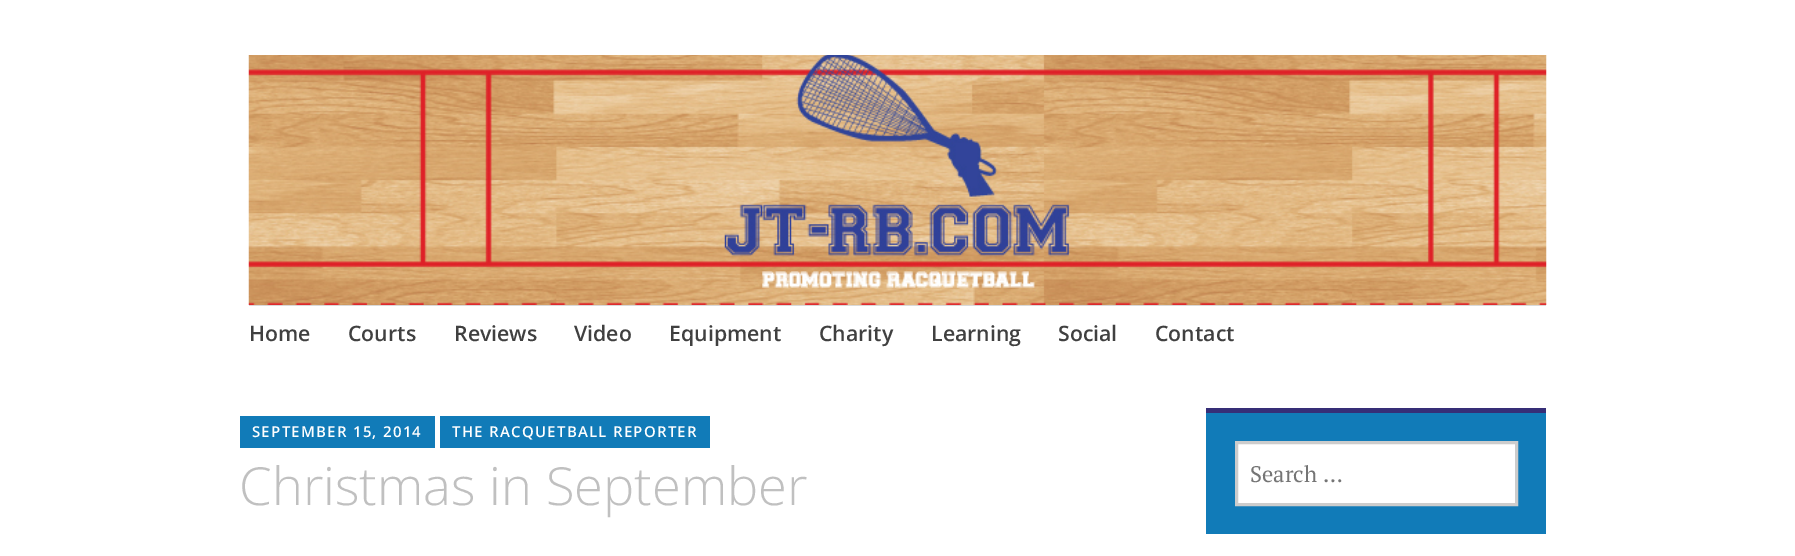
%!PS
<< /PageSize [1795 556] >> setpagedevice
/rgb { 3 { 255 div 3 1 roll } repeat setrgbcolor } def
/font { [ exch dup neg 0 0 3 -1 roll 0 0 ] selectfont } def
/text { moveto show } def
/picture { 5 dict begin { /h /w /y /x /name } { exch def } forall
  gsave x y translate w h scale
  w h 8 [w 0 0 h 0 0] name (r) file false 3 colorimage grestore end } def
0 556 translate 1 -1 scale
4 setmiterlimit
255 255 255 rgb
0 0 1795 556 rectfill
(img_01.rgb) 248 55 1299 250 picture
217 217 217 rgb
249 305 1297 1 rectfill
17 123 184 rgb
240 416 195 32 rectfill
440 416 270 32 rectfill
1206 413 340 121 rectfill
54 46 119 rgb
1206 408 340 5 rectfill
255 255 255 rgb
1236.5 442.5 moveto 280 0 rlineto 0 62 rlineto -280 0 rlineto closepath gsave fill grestore
204 204 204 rgb
3 setlinewidth
stroke
/OpenSans-SemiBold 21.25 font
64 64 64 rgb
(Home) 249 341 text
(Courts) 348 341 text
(Reviews) 454 341 text
(Video) 574 341 text
(Equipment) 669 341 text
(Charity) 819 341 text
(Learning) 931 341 text
(Social) 1058 341 text
(Contact) 1155 341 text
/OpenSans-SemiBold 15 font
255 255 255 rgb
252 437 moveto 1.25 0 (SEPTEMBER 15, 2014) ashow
452 437 moveto 1.25 0 (THE RACQUETBALL REPORTER) ashow
/OpenSans-Light 52.5 font
192 192 192 rgb
(Christmas in September) 239 505 text
/PTSerif-Regular 22.5 font
117 117 117 rgb
(Search …) 1250 482 text
showpage
